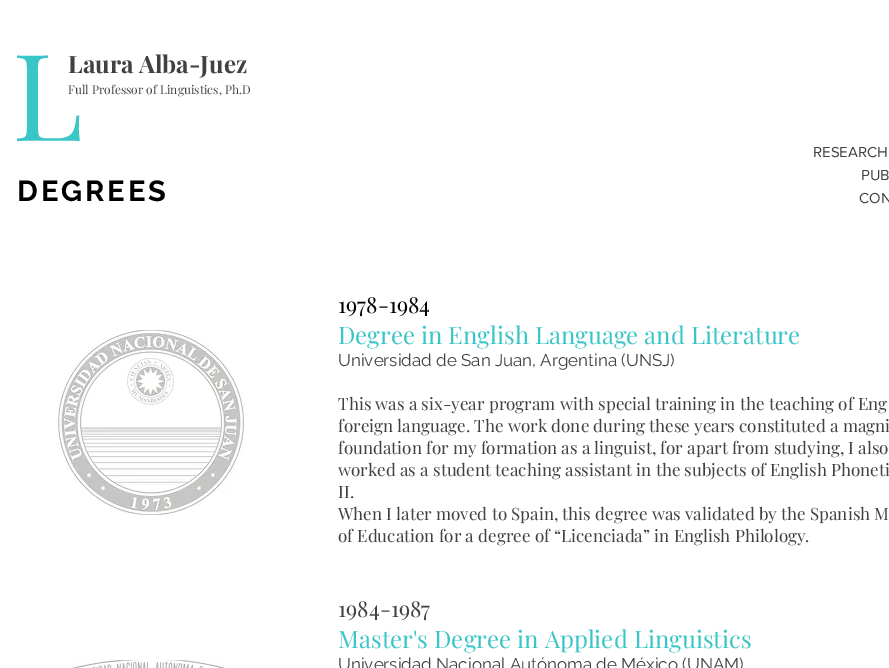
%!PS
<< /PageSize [889 668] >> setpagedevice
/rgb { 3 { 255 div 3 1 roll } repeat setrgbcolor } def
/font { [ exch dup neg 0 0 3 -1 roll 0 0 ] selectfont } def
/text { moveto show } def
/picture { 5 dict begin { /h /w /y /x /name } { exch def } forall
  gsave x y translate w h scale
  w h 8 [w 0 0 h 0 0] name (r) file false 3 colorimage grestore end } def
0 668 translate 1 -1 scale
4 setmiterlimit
255 255 255 rgb
0 0 889 668 rectfill
(img_01.rgb) 58 330 186 185 picture
(img_02.rgb) 72 660 153 8 picture
/PlayfairDisplay-Regular 121 font
58 197 199 rgb
(L) 12 141 text
/PlayfairDisplay-Bold 24 font
65 65 65 rgb
(Laura Alba-Juez) 68 73 text
/PlayfairDisplay-Regular 12 font
(Full Professor of Linguistics, Ph.D) 68 94 text
/Raleway-Bold 29 font
0 0 0 rgb
17 201 moveto 3 0 (DEGREES) ashow
/PlayfairDisplay-Regular 22 font
(1978-1984) 338 313 text
/PlayfairDisplay-Regular 24 font
58 197 199 rgb
(Degree in English Language and Literature) 338 344 text
/Raleway-Regular 17 font
65 65 65 rgb
(Universidad de San Juan, Argentina \(UNSJ\)) 338 366 text
/PlayfairDisplay-Regular 17 font
(This was a six-year program with special training in the teaching of Eng) 338 410 text
(foreign language. The work done during these years constituted a magni) 338 432 text
(foundation for my formation as a linguist, for apart from studying, I also) 338 454 text
(worked as a student teaching assistant in the subjects of English Phoneti) 338 476 text
(II.) 338 498 text
(When I later moved to Spain, this degree was validated by the Spanish M) 338 520 text
(of Education for a degree of “Licenciada” in English Philology.) 338 542 text
/PlayfairDisplay-Regular 22 font
(1984-1987) 338 617 text
/PlayfairDisplay-Regular 24 font
58 197 199 rgb
(Master's Degree in Applied Linguistics) 338 648 text
/Raleway-Regular 17 font
65 65 65 rgb
(Universidad Nacional Autónoma de México \(UNAM\)) 338 670 text
/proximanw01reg-Regular 15 font
(RESEARCH) 813 157 text
(PUB) 861 180 text
(CON) 859 203 text
showpage
